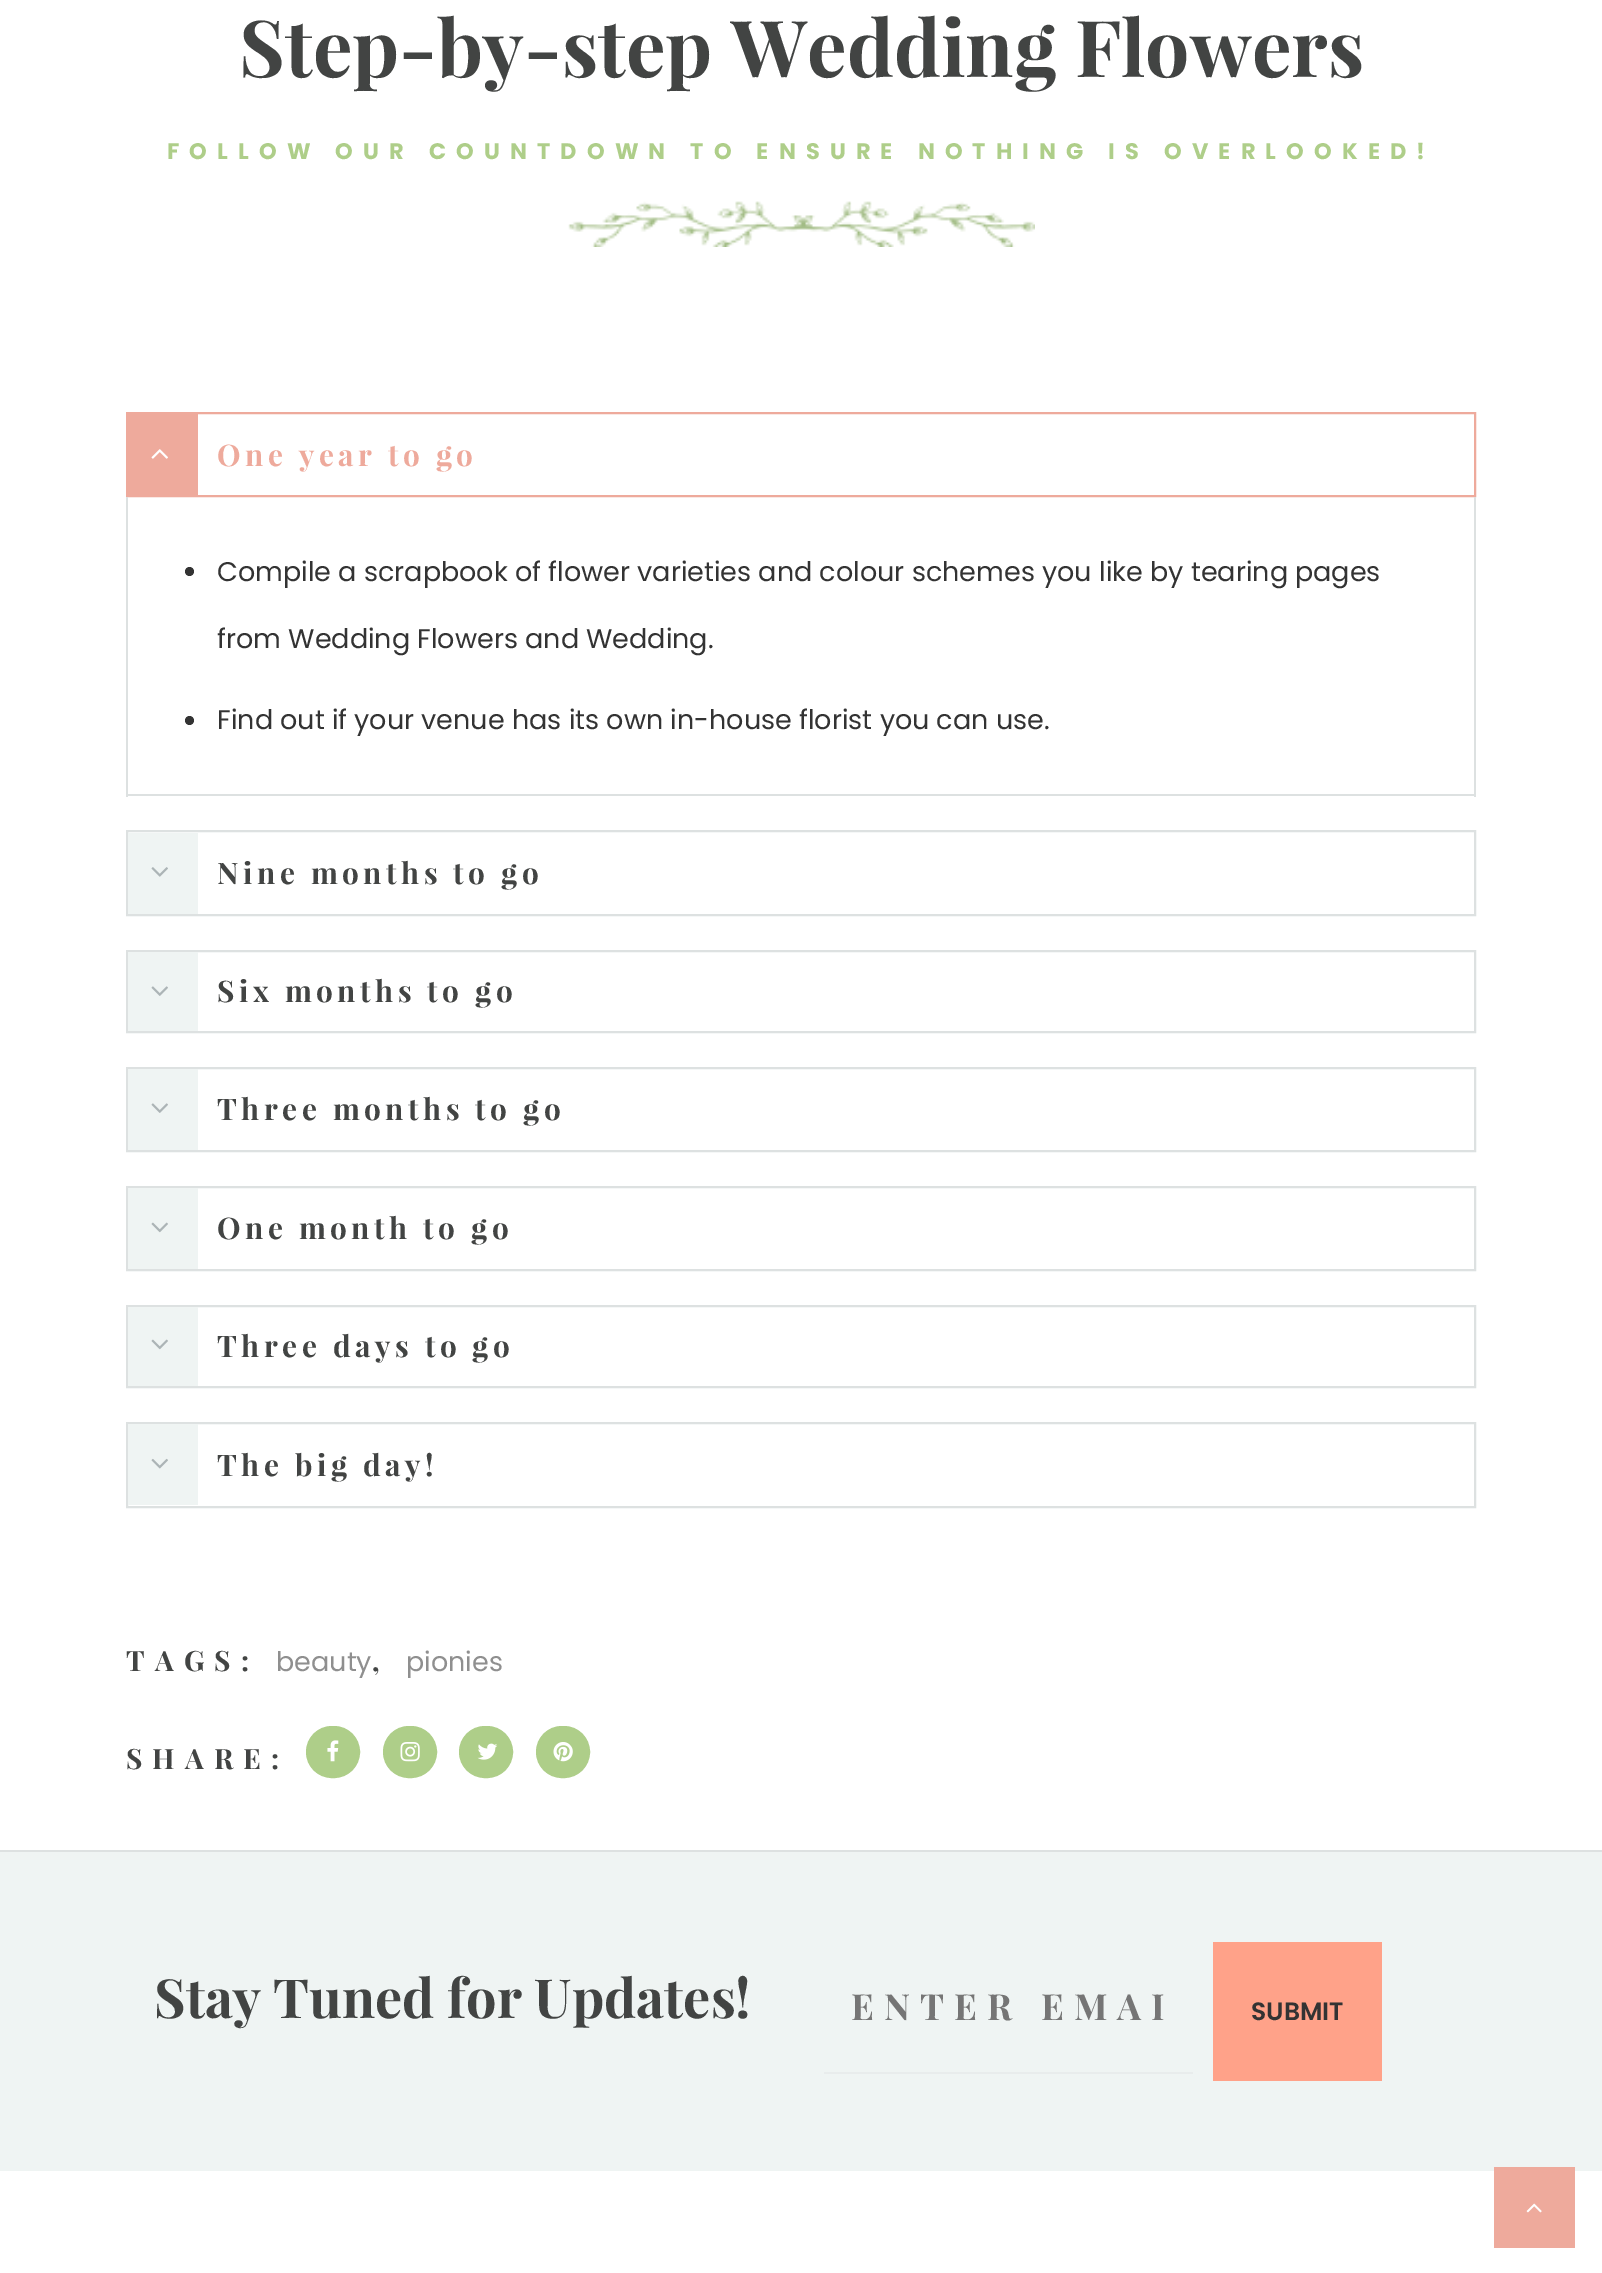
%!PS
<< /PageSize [1602 2273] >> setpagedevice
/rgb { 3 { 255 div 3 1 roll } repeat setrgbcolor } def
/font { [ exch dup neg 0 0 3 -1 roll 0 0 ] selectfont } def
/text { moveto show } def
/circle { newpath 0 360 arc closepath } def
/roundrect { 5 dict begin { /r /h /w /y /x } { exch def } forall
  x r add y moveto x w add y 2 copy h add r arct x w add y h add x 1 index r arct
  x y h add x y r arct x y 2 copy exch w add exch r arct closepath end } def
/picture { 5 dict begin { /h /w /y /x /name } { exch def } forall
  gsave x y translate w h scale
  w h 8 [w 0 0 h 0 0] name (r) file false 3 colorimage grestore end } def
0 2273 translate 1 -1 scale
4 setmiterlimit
255 255 255 rgb
0 0 1602 2273 rectfill
(img_01.rgb) 568 201 467 46 picture
238 170 156 rgb
2 setlinewidth
127 413 1348 83 rectstroke
128 414 70 81 rectfill
(img_02.rgb) 151 449 17 10 picture
221 225 225 rgb
1474 497 2 300 rectfill
126 794 1350 2 rectfill
126 497 2 300 rectfill
51 51 51 rgb
189.5 571.5 4.5 circle fill
189.5 720.5 4.5 circle fill
221 225 225 rgb
127 831 1348 84 rectstroke
239 244 243 rgb
128 833 70 81 rectfill
(img_03.rgb) 151 867 17 10 picture
221 225 225 rgb
127 951 1348 81 rectstroke
239 244 243 rgb
128 952 70 79 rectfill
(img_04.rgb) 151 986 17 10 picture
221 225 225 rgb
127 1068 1348 83 rectstroke
239 244 243 rgb
128 1069 70 81 rectfill
(img_04.rgb) 151 1103 17 10 picture
221 225 225 rgb
127 1187 1348 83 rectstroke
239 244 243 rgb
128 1188 70 81 rectfill
(img_05.rgb) 151 1222 17 11 picture
221 225 225 rgb
127 1306 1348 81 rectstroke
239 244 243 rgb
128 1307 70 79 rectfill
(img_05.rgb) 151 1339 17 11 picture
221 225 225 rgb
127 1423 1348 84 rectstroke
239 244 243 rgb
128 1424 70 81 rectfill
(img_06.rgb) 151 1458 17 11 picture
174 206 137 rgb
308.5 1728.5 49 47 23.5 roundrect gsave fill grestore
5 setlinewidth
stroke
(img_07.rgb) 327 1740 12 22 picture
385.5 1728.5 49 47 23.5 roundrect gsave fill grestore
stroke
(img_08.rgb) 400 1742 20 20 picture
461.5 1728.5 49 47 23.5 roundrect gsave fill grestore
stroke
(img_09.rgb) 477 1743 21 17 picture
538.5 1728.5 49 47 23.5 roundrect gsave fill grestore
stroke
(img_10.rgb) 553 1742 20 20 picture
221 225 225 rgb
0 1850 1602 2 rectfill
239 244 243 rgb
0 1852 1602 319 rectfill
232 236 236 rgb
824 2072 369 2 rectfill
255 162 137 rgb
1213 1942 169 139 rectfill
238 170 156 rgb
1494 2167 81 81 rectfill
(img_11.rgb) 1526 2203 16 10 picture
/PlayfairDisplay-Bold 78.6 font
66 68 67 rgb
(Step-by-step Wedding Flowers) 239 77 text
/Poppins-Bold 22.5 font
174 206 137 rgb
167 159 moveto 10.12 0 (FOLLOW OUR COUNTDOWN TO ENSURE NOTHING IS OVERLOOKED!) ashow
/PlayfairDisplay-Bold 29.75 font
238 170 156 rgb
217 466 moveto 4.5 0 (One year to go) ashow
/Poppins-Regular 27 font
51 51 51 rgb
(Compile a scrapbook of flower varieties and colour schemes you like by tearing pages) 217 581 text
(from Wedding Flowers and Wedding.) 217 648 text
(Find out if your venue has its own in-house florist you can use.) 217 729 text
/PlayfairDisplay-Bold 29.75 font
66 68 67 rgb
217 884 moveto 4.5 0 (Nine months to go) ashow
217 1002 moveto 4.5 0 (Six months to go) ashow
217 1120 moveto 4.5 0 (Three months to go) ashow
217 1239 moveto 4.5 0 (One month to go) ashow
217 1357 moveto 4.5 0 (Three days to go) ashow
217 1476 moveto 4.5 0 (The big day!) ashow
/PlayfairDisplay-Bold 28 font
126 1671 moveto 10.12 0 (TAGS:) ashow
/Poppins-Regular 27 font
143 143 143 rgb
(beauty) 276 1671 text
/PlayfairDisplay-Bold 28 font
66 68 67 rgb
372 1671 moveto 10.12 0 (,) ashow
/Poppins-Regular 27 font
143 143 143 rgb
(pionies) 406 1671 text
/PlayfairDisplay-Bold 28 font
66 68 67 rgb
126 1769 moveto 10.12 0 (SHARE:) ashow
/PlayfairDisplay-Bold 54 font
(Stay Tuned for Updates!) 154 2018 text
/PlayfairDisplay-Bold 36 font
117 117 117 rgb
851 2020 moveto 10.12 0 (ENTER EMAI) ashow
/Poppins-SemiBold 25 font
51 51 51 rgb
(SUBMIT) 1251 2020 text
showpage
